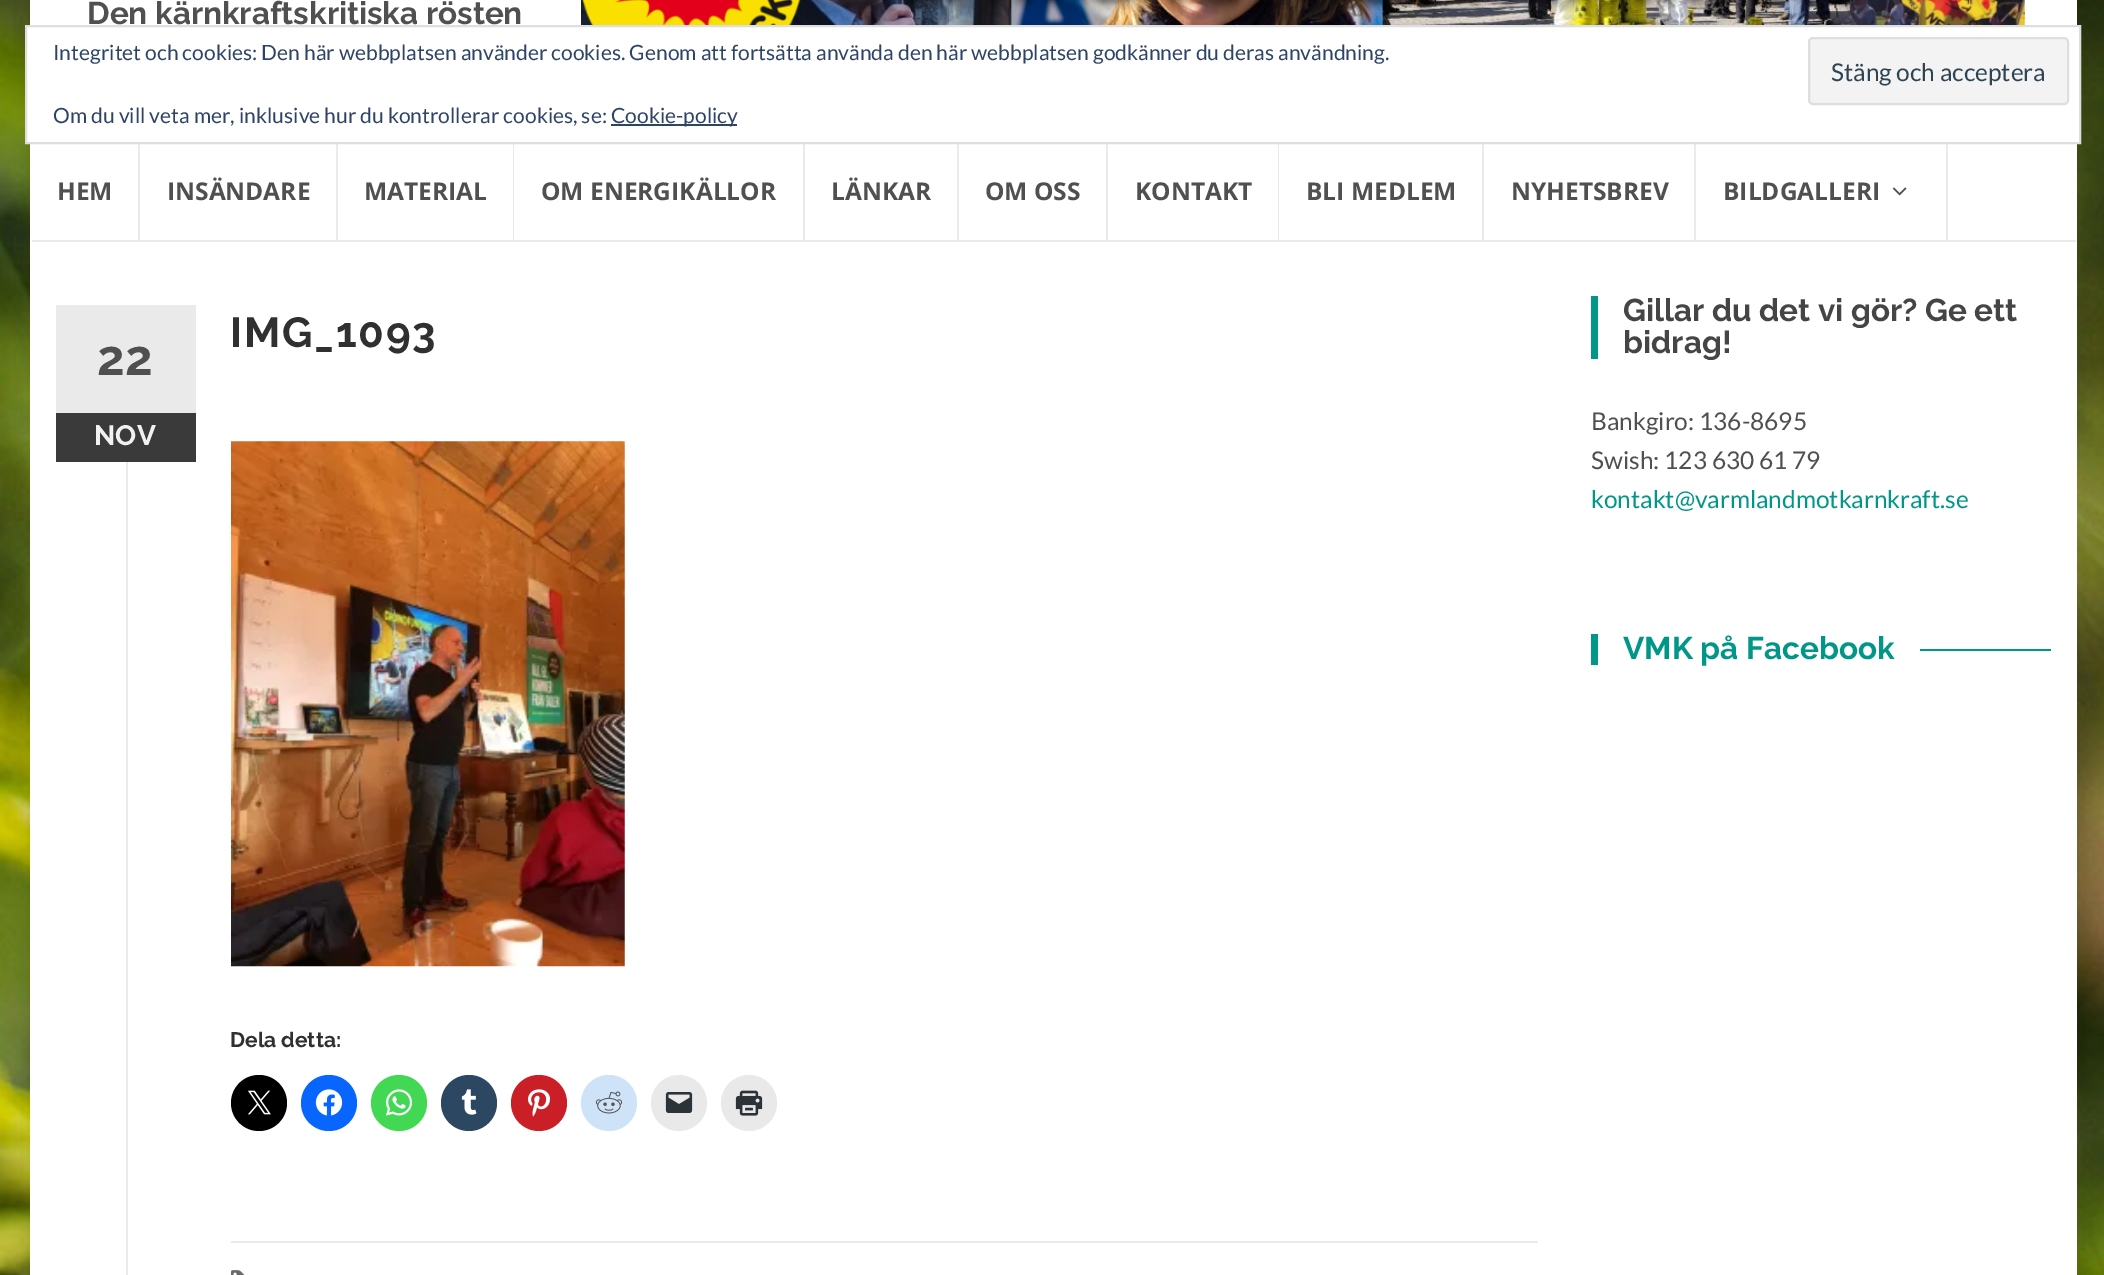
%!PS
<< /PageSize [2104 1275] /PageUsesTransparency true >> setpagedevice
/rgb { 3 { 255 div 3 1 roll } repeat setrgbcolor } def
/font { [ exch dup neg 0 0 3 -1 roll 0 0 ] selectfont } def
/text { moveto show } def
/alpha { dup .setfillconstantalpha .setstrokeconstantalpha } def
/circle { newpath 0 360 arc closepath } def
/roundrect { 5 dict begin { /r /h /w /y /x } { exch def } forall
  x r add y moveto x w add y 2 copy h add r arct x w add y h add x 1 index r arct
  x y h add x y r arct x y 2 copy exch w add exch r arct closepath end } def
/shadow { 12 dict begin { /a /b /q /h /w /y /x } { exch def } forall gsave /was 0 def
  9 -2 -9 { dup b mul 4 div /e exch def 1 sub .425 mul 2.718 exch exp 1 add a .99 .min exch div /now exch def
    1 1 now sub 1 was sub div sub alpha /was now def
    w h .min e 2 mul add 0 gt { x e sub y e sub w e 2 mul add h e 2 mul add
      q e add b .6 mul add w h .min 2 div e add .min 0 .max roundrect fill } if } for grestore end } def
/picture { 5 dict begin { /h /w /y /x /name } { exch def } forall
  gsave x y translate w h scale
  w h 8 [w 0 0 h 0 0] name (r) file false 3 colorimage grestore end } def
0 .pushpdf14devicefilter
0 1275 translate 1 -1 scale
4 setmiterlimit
255 255 255 rgb
0 0 2104 1275 rectfill
(img_01.rgb) 0 0 2104 1275 picture
0 0 0 rgb
30 -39 2047 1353 0 13 0.1 shadow
255 255 255 rgb
30 0 2047 1275 rectfill
(img_02.rgb) 581 0 1444 25 picture
234 234 234 rgb
32 240 2044 2 rectfill
140 140 moveto 0 100 rlineto -2 0 rlineto 0 -96 rlineto closepath fill
338 140 moveto 0 100 rlineto -2 0 rlineto 0 -96 rlineto closepath fill
514 140 moveto 0 100 rlineto -1 0 rlineto 0 -96 rlineto closepath fill
805 140 moveto 0 100 rlineto -2 0 rlineto 0 -96 rlineto closepath fill
959 140 moveto 0 100 rlineto -2 0 rlineto 0 -96 rlineto closepath fill
1108 140 moveto 0 100 rlineto -2 0 rlineto 0 -96 rlineto closepath fill
1279 140 moveto 0 100 rlineto -1 0 rlineto 0 -96 rlineto closepath fill
1484 140 moveto 0 100 rlineto -2 0 rlineto 0 -96 rlineto closepath fill
1696 140 moveto 0 100 rlineto -2 0 rlineto 0 -96 rlineto closepath fill
1948 140 moveto 0 100 rlineto -2 0 rlineto 0 -96 rlineto closepath fill
(img_03.rgb) 1892 187 15 9 picture
56 305 140 108 rectfill
58 58 58 rgb
56 413 140 49 rectfill
234 234 234 rgb
126 462 2 813 rectfill
(img_04.rgb) 231 441 394 526 picture
0 0 0 rgb
259 1103 28 circle fill
(img_05.rgb) 248 1090 23 25 picture
8 102 255 rgb
329 1103 28 circle fill
(img_06.rgb) 315 1089 28 27 picture
67 216 84 rgb
399 1103 28 circle fill
(img_07.rgb) 386 1089 27 27 picture
44 71 98 rgb
469 1103 28 circle fill
(img_08.rgb) 461 1089 16 26 picture
202 31 39 rgb
539 1103 28 circle fill
(img_09.rgb) 528 1089 22 28 picture
206 227 248 rgb
609 1103 28 circle fill
(img_10.rgb) 595 1091 28 23 picture
233 233 233 rgb
679 1103 28 circle fill
(img_11.rgb) 665 1092 28 21 picture
749 1103 28 circle fill
(img_12.rgb) 735 1090 28 26 picture
234 234 234 rgb
231 1241 1307 2 rectfill
(img_13.rgb) 231 1270 14 5 picture
0 150 136 rgb
1591 296 7 63 rectfill
1591 634 7 31 rectfill
1920 649 131 2 rectfill
255 255 255 rgb
26 26 moveto 2054 0 rlineto 0 117 rlineto -2054 0 rlineto closepath gsave fill grestore
222 222 222 rgb
2 setlinewidth
stroke
243 243 243 rgb
1809 38 259 66 4 roundrect gsave fill grestore
222 222 222 rgb
stroke
46 68 103 rgb
611 124 126 2 rectfill
/Raleway-Bold 31.5 font
80 80 80 rgb
(Den kärnkraftskritiska rösten) 87 24 text
/OpenSans-Bold 24.5 font
(HEM) 57 200 text
(INSÄNDARE) 167 200 text
(MATERIAL) 364 200 text
(OM ENERGIKÄLLOR) 541 200 text
(LÄNKAR) 831 200 text
(OM OSS) 985 200 text
(KONTAKT) 1135 200 text
(BLI MEDLEM) 1306 200 text
(NYHETSBREV) 1511 200 text
(BILDGALLERI) 1723 200 text
/Raleway-Bold 42 font
48 48 48 rgb
230 347 moveto 1.75 0 (IMG_1093) ashow
/Raleway-Bold 49 font
80 80 80 rgb
(22) 97 375 text
/Raleway-Bold 28 font
241 241 241 rgb
(NOV) 94 445 text
/Raleway-Bold 21 font
48 48 48 rgb
(Dela detta:) 230 1047 text
/Raleway-Bold 31.5 font
69 69 69 rgb
(Gillar du det vi gör? Ge ett) 1623 321 text
(bidrag!) 1623 353 text
/Lato-Regular 24.5 font
80 80 80 rgb
(Bankgiro: 136-8695) 1591 430 text
(Swish: 123 630 61 79) 1591 469 text
0 150 136 rgb
(kontakt@varmlandmotkarnkraft.se) 1591 508 text
/Raleway-Bold 31.5 font
(VMK på Facebook) 1623 659 text
/Lato-Regular 21 font
46 68 103 rgb
(Integritet och cookies: Den här webbplatsen använder cookies. Genom att fortsätta använda den här webbplatsen godkänner du deras användning.) 53 60 text
/Lato-Regular 24.5 font
46 68 83 rgb
(Stäng och acceptera) 1831 81 text
/Lato-Regular 21 font
46 68 103 rgb
(Om du vill veta mer, inklusive hur du kontrollerar cookies, se:) 53 123 text
(Cookie-policy) 611 123 text
.poppdf14devicefilter showpage
